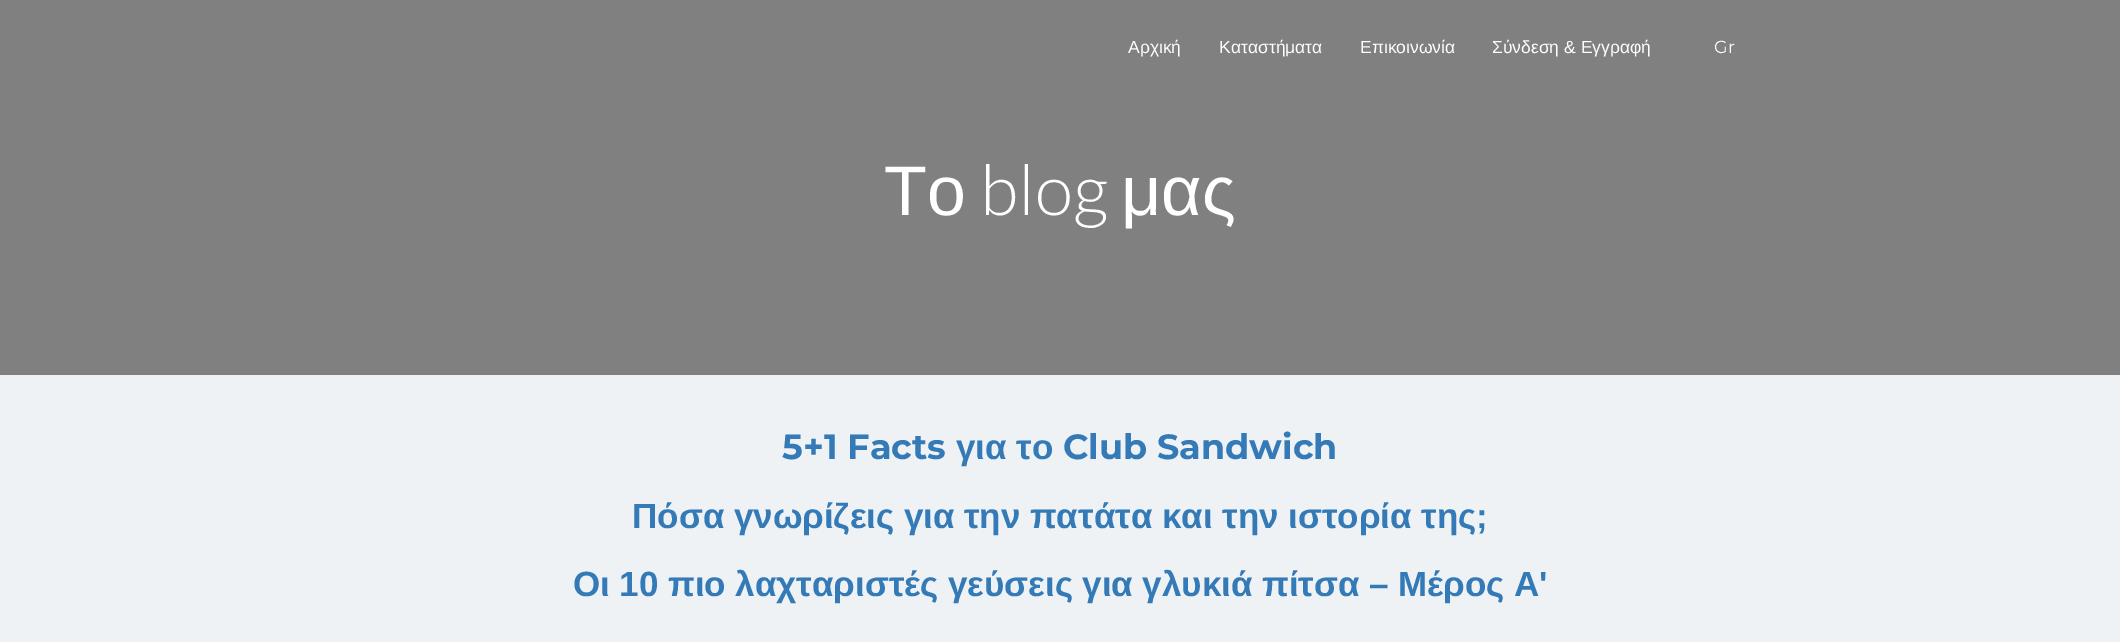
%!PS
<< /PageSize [2120 642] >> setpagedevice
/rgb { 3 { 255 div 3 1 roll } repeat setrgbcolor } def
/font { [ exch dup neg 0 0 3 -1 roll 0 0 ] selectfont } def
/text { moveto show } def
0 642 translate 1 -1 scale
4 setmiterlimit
128 128 128 rgb
0 0 2120 642 rectfill
239 242 245 rgb
0 375 2120 267 rectfill
/LiberationSans-Regular 17.5 font
255 255 255 rgb
(Αρχική) 1128 53 text
(Καταστήματα) 1219 53 text
(Επικοινωνία) 1360 53 text
(Σύνδεση & Eγγραφή) 1492 53 text
/Montserrat-Regular 17.5 font
(Gr) 1714 53 text
/LiberationSans-Regular 70 font
(Το) 884 215 text
/Lato-Light 70 font
(blog) 980 215 text
/LiberationSans-Regular 70 font
(μας) 1121 215 text
/Montserrat-Bold 35 font
51 122 183 rgb
(5+1 Facts) 782 459 text
/LiberationSans-Bold 35 font
(για το) 956 459 text
/Montserrat-Bold 35 font
(Club Sandwich) 1063 459 text
/LiberationSans-Bold 35 font
632 528 moveto -0.25 0 32 (Πόσα γνωρίζεις για την πατάτα και την ιστορία της;) widthshow
573 596 moveto -0.25 0 32 (Οι 10 πιο λαχταριστές γεύσεις για γλυκιά πίτσα – Μέρος Α') widthshow
showpage
